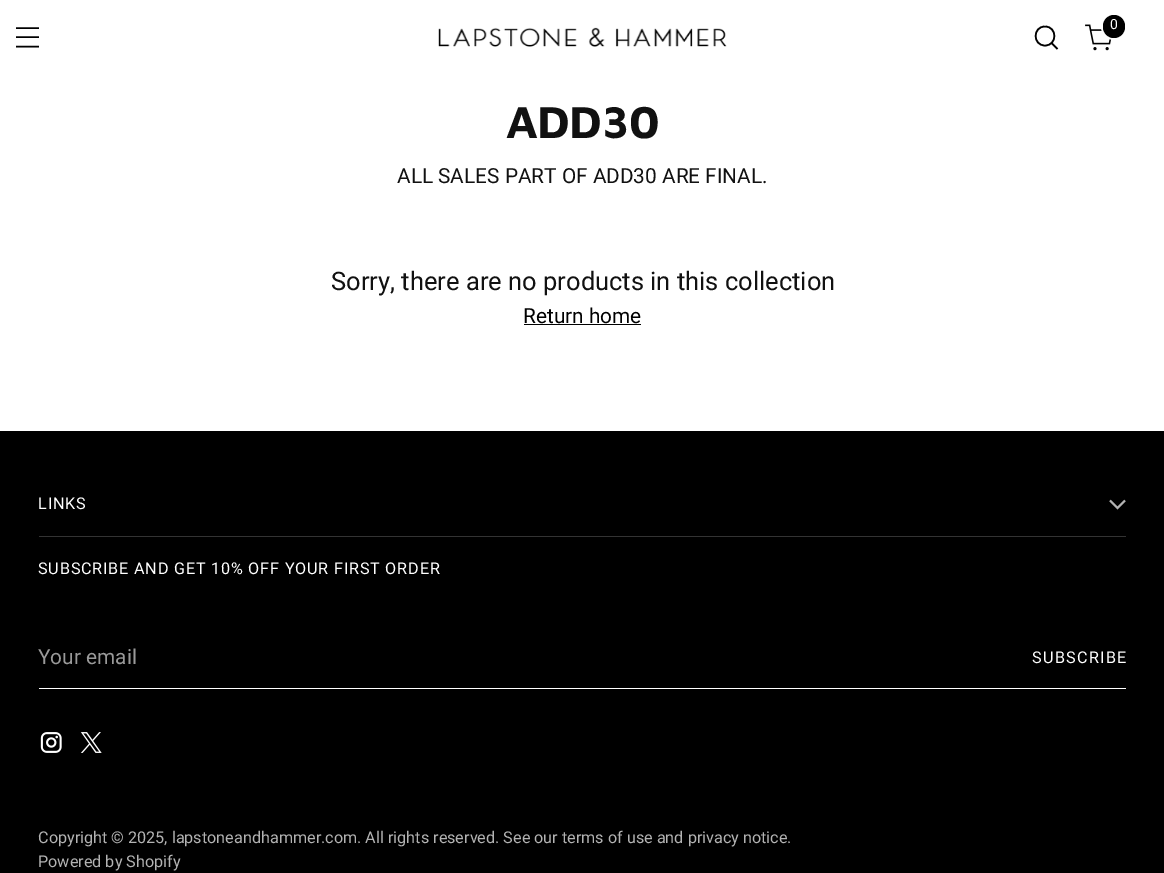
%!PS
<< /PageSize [1164 873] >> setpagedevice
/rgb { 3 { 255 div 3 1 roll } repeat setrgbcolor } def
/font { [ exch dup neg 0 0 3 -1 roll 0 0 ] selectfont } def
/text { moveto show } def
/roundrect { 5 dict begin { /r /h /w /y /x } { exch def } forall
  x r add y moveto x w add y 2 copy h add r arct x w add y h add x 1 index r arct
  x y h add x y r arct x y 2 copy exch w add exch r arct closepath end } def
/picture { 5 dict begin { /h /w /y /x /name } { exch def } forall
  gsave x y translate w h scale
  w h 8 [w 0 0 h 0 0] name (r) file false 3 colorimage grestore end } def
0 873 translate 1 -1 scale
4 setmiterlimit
255 255 255 rgb
0 0 1164 873 rectfill
0 0 0 rgb
1.6 setlinewidth
16 37 moveto 23 0 rlineto 16 28 moveto 23 0 rlineto 16 46.5 moveto 23 0 rlineto stroke
1 setlinecap
1045 45.5 moveto 12.5 0 12.5 -19 0 -19 rcurveto -12.5 0 -12.5 19 0 19 rcurveto closepath stroke
0 setlinecap
1051.5 43 moveto 6 6 rlineto stroke
(img_01.rgb) 1085 24 27 27 picture
255 255 255 rgb
2 setlinewidth
1102 15 25 24 12 roundrect stroke
0 0 0 rgb
1103 15 22 23 11 roundrect fill
(img_02.rgb) 438 27 289 20 picture
524 324 117 1 rectfill
0 431 1164 442 rectfill
51 51 51 rgb
39 536 1087 1 rectfill
179 179 179 rgb
1110 500.5 moveto 7.5 7.5 rlineto 7.5 -7.5 rlineto stroke
255 255 255 rgb
39 688 1087 1 rectfill
(img_03.rgb) 40 732 22 21 picture
(img_04.rgb) 80 732 22 21 picture
/Roboto-Regular 14 font
(0) 1110 29 text
/MavenPro-Bold 46 font
17 17 17 rgb
506 138 moveto -0.5 0 (ADD30) ashow
/Roboto-Regular 20.8 font
(ALL SALES PART OF ADD30 ARE FINAL.) 397 183 text
/Roboto-Regular 25.5 font
(Sorry, there are no products in this collection) 331 290 text
/Roboto-Regular 20.8 font
0 0 0 rgb
(Return home) 523 323 text
/Roboto-Regular 16.2 font
255 255 255 rgb
38 509 moveto 0.8 0 (LINKS) ashow
38 574 moveto 0.8 0 (SUBSCRIBE AND GET 10% OFF YOUR FIRST ORDER) ashow
/Roboto-Regular 20.8 font
153 153 153 rgb
(Your email) 38 664 text
/Roboto-Regular 16.2 font
255 255 255 rgb
1032 663 moveto 1.25 0 (SUBSCRIBE) ashow
179 179 179 rgb
(Copyright © 2025, lapstoneandhammer.com. All rights reserved. See our terms of use and privacy notice.) 38 843 text
(Powered by Shopify) 38 867 text
showpage
